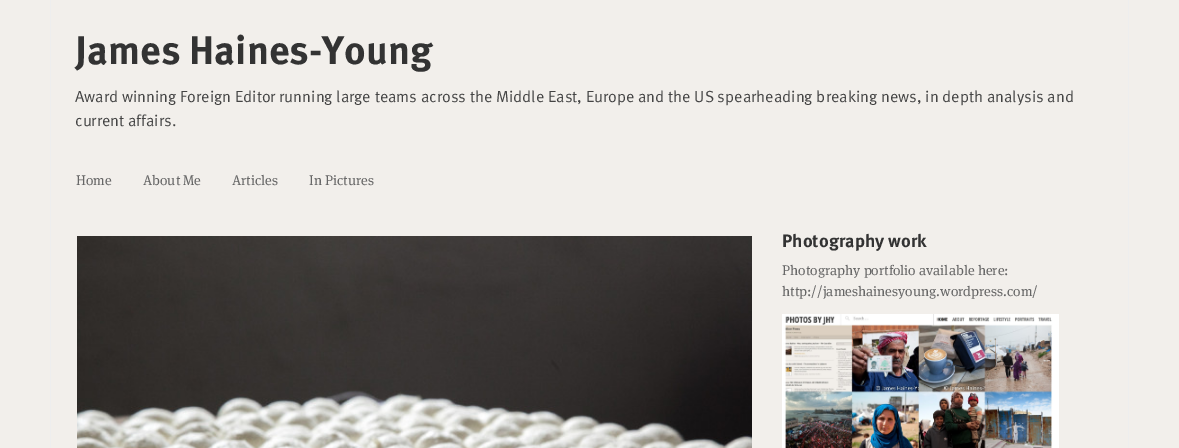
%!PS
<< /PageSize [1179 448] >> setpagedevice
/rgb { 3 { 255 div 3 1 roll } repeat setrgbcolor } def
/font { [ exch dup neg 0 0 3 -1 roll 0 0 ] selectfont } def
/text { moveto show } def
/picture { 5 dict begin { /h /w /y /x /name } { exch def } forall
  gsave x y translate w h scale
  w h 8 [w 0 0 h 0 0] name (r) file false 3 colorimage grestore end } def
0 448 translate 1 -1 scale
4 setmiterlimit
242 239 235 rgb
0 0 1179 448 rectfill
238 238 238 rgb
1128 0 1 448 rectfill
50 0 1 448 rectfill
(img_01.rgb) 77 236 675 212 picture
(img_02.rgb) 782 314 277 134 picture
/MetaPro-Bold 40 font
51 51 51 rgb
(James Haines-Young) 75 64 text
/MetaPro-Regular 16 font
68 68 68 rgb
(Award winning Foreign Editor running large teams across the Middle East, Europe and the US spearheading breaking news, in depth analysis and) 75 102 text
(current affairs.) 75 126 text
/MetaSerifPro-Regular 14 font
102 102 102 rgb
(Home) 76 185 text
(About Me) 143 185 text
(Articles) 232 185 text
(In Pictures) 309 185 text
/MetaPro-Bold 18 font
51 51 51 rgb
(Photography work) 782 247 text
/MetaSerifPro-Regular 14 font
102 102 102 rgb
(Photography portfolio available here:) 782 275 text
(http://jameshainesyoung.wordpress.com/) 782 296 text
showpage
